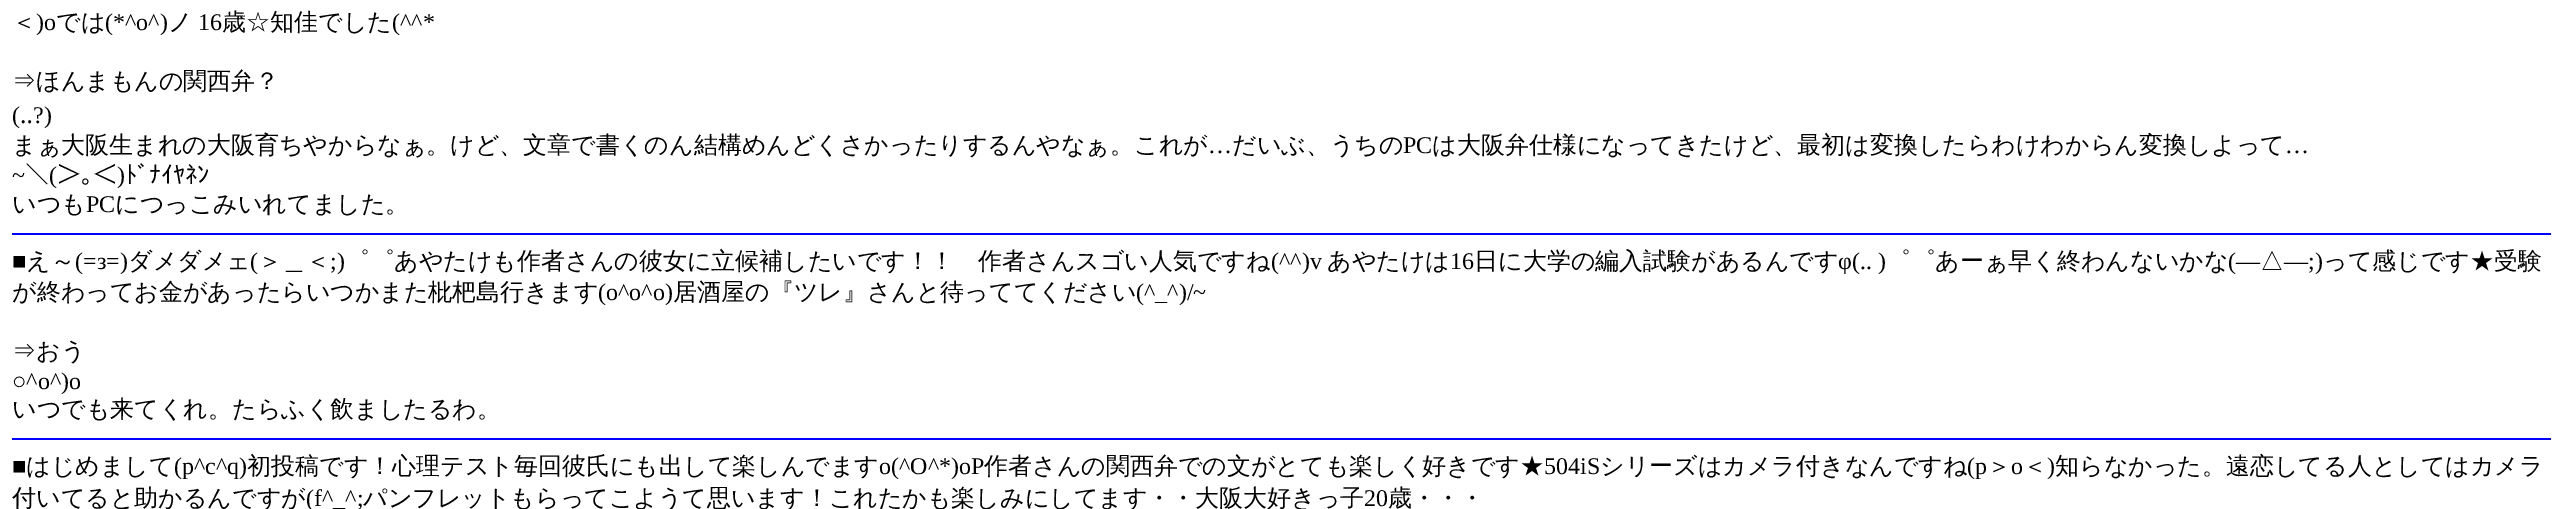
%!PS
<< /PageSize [2562 509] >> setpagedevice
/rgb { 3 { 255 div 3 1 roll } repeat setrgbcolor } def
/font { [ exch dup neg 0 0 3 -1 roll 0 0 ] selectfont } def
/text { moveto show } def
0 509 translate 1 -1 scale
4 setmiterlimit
255 255 255 rgb
0 0 2562 509 rectfill
0 0 255 rgb
12 233 2539 2 rectfill
12 438 2539 2 rectfill
/WenQuanYiZenHei-Medium 24 font
0 0 0 rgb
(＜) 12 30 text
/LiberationSerif-Regular 24 font
(\)o) 36 30 text
/WenQuanYiZenHei-Medium 24 font
(では) 56 30 text
/LiberationSerif-Regular 24 font
(\(*^o^\)) 105 30 text
/WenQuanYiZenHei-Medium 24 font
(ノ) 168 30 text
/LiberationSerif-Regular 24 font
(16) 198 30 text
/WenQuanYiZenHei-Medium 24 font
(歳☆知佳でした) 222 30 text
/LiberationSerif-Regular 24 font
(\(^^*) 392 30 text
/WenQuanYiZenHei-Medium 24 font
(⇒ほんまもんの関西弁？) 12 89 text
/LiberationSerif-Regular 24 font
(\() 12 123 text
/NotoSans-Regular 24 font
(‥) 20 123 text
/LiberationSerif-Regular 24 font
(?\)) 33 123 text
/WenQuanYiZenHei-Medium 24 font
(まぁ大阪生まれの大阪育ちやからなぁ。けど、文章で書くのん結構めんどくさかったりするんやなぁ。これが) 12 153 text
/LiberationSerif-Regular 24 font
(…) 1208 153 text
/WenQuanYiZenHei-Medium 24 font
(だいぶ、うちの) 1232 153 text
/LiberationSerif-Regular 24 font
(PC) 1403 153 text
/WenQuanYiZenHei-Medium 24 font
(は大阪弁仕様になってきたけど、最初は変換したらわけわからん変換しよって) 1432 153 text
/LiberationSerif-Regular 24 font
(…) 2285 153 text
(~) 12 183 text
/IPAGothic-Regular 24 font
(＼) 25 183 text
/LiberationSerif-Regular 24 font
(\() 49 183 text
/IPAGothic-Regular 24 font
(＞｡＜) 57 183 text
/LiberationSerif-Regular 24 font
(\)) 117 183 text
/IPAGothic-Regular 24 font
(ﾄﾞﾅｲﾔﾈﾝ) 125 183 text
/WenQuanYiZenHei-Medium 24 font
(いつも) 12 212 text
/LiberationSerif-Regular 24 font
(PC) 86 212 text
/WenQuanYiZenHei-Medium 24 font
(につっこみいれてました。) 115 212 text
/LiberationSerif-Regular 24 font
(■) 12 269 text
/WenQuanYiZenHei-Medium 24 font
(え～) 26 269 text
/LiberationSerif-Regular 24 font
(\(=з=\)) 75 269 text
/WenQuanYiZenHei-Medium 24 font
(ダメダメェ) 128 269 text
/LiberationSerif-Regular 24 font
(\() 250 269 text
/WenQuanYiZenHei-Medium 24 font
(＞＿＜) 258 269 text
/LiberationSerif-Regular 24 font
(;\)) 330 269 text
/WenQuanYiZenHei-Medium 24 font
(゜゜あやたけも作者さんの彼女に立候補したいです！！　作者さんスゴい人気ですね) 345 269 text
/LiberationSerif-Regular 24 font
(\(^^\)v) 1271 269 text
/WenQuanYiZenHei-Medium 24 font
(あやたけは) 1327 269 text
/LiberationSerif-Regular 24 font
(16) 1450 269 text
/WenQuanYiZenHei-Medium 24 font
(日に大学の編入試験があるんです) 1474 269 text
/LiberationSerif-Regular 24 font
(φ\(.. \)) 1838 269 text
/WenQuanYiZenHei-Medium 24 font
(゜゜あーぁ早く終わんないかな) 1886 269 text
/LiberationSerif-Regular 24 font
(\(―) 2228 269 text
/WenQuanYiZenHei-Medium 24 font
(△) 2260 269 text
/LiberationSerif-Regular 24 font
(―;\)) 2284 269 text
/WenQuanYiZenHei-Medium 24 font
(って感じです★受験) 2323 269 text
(が終わってお金があったらいつかまた枇杷島行きます) 12 300 text
/LiberationSerif-Regular 24 font
(\(o^o^o\)) 598 300 text
/WenQuanYiZenHei-Medium 24 font
(居酒屋の『ツレ』さんと待っててください) 673 300 text
/LiberationSerif-Regular 24 font
(\(^_^\)/~) 1136 300 text
/WenQuanYiZenHei-Medium 24 font
(⇒おう) 12 359 text
/LiberationSerif-Regular 24 font
(○^o^\)o) 12 389 text
/WenQuanYiZenHei-Medium 24 font
(いつでも来てくれ。たらふく飲ましたるわ。) 12 417 text
/LiberationSerif-Regular 24 font
(■) 12 474 text
/WenQuanYiZenHei-Medium 24 font
(はじめまして) 26 474 text
/LiberationSerif-Regular 24 font
(\(p^c^q\)) 174 474 text
/WenQuanYiZenHei-Medium 24 font
(初投稿です！心理テスト毎回彼氏にも出して楽しんでます) 247 474 text
/LiberationSerif-Regular 24 font
(o\(^O^*\)oP) 879 474 text
/WenQuanYiZenHei-Medium 24 font
(作者さんの関西弁での文がとても楽しく好きです★) 984 474 text
/LiberationSerif-Regular 24 font
(504iS) 1544 474 text
/WenQuanYiZenHei-Medium 24 font
(シリーズはカメラ付きなんですね) 1600 474 text
/LiberationSerif-Regular 24 font
(\(p) 1967 474 text
/WenQuanYiZenHei-Medium 24 font
(＞) 1987 474 text
/LiberationSerif-Regular 24 font
(o) 2011 474 text
/WenQuanYiZenHei-Medium 24 font
(＜) 2023 474 text
/LiberationSerif-Regular 24 font
(\)) 2047 474 text
/WenQuanYiZenHei-Medium 24 font
(知らなかった。遠恋してる人としてはカメラ) 2055 474 text
(付いてると助かるんですが) 12 506 text
/LiberationSerif-Regular 24 font
(\(f^_^;) 306 506 text
/WenQuanYiZenHei-Medium 24 font
(パンフレットもらってこようて思います！これたかも楽しみにしてます・・大阪大好きっ子) 363 506 text
/LiberationSerif-Regular 24 font
(20) 1364 506 text
/WenQuanYiZenHei-Medium 24 font
(歳・・・) 1388 506 text
showpage
